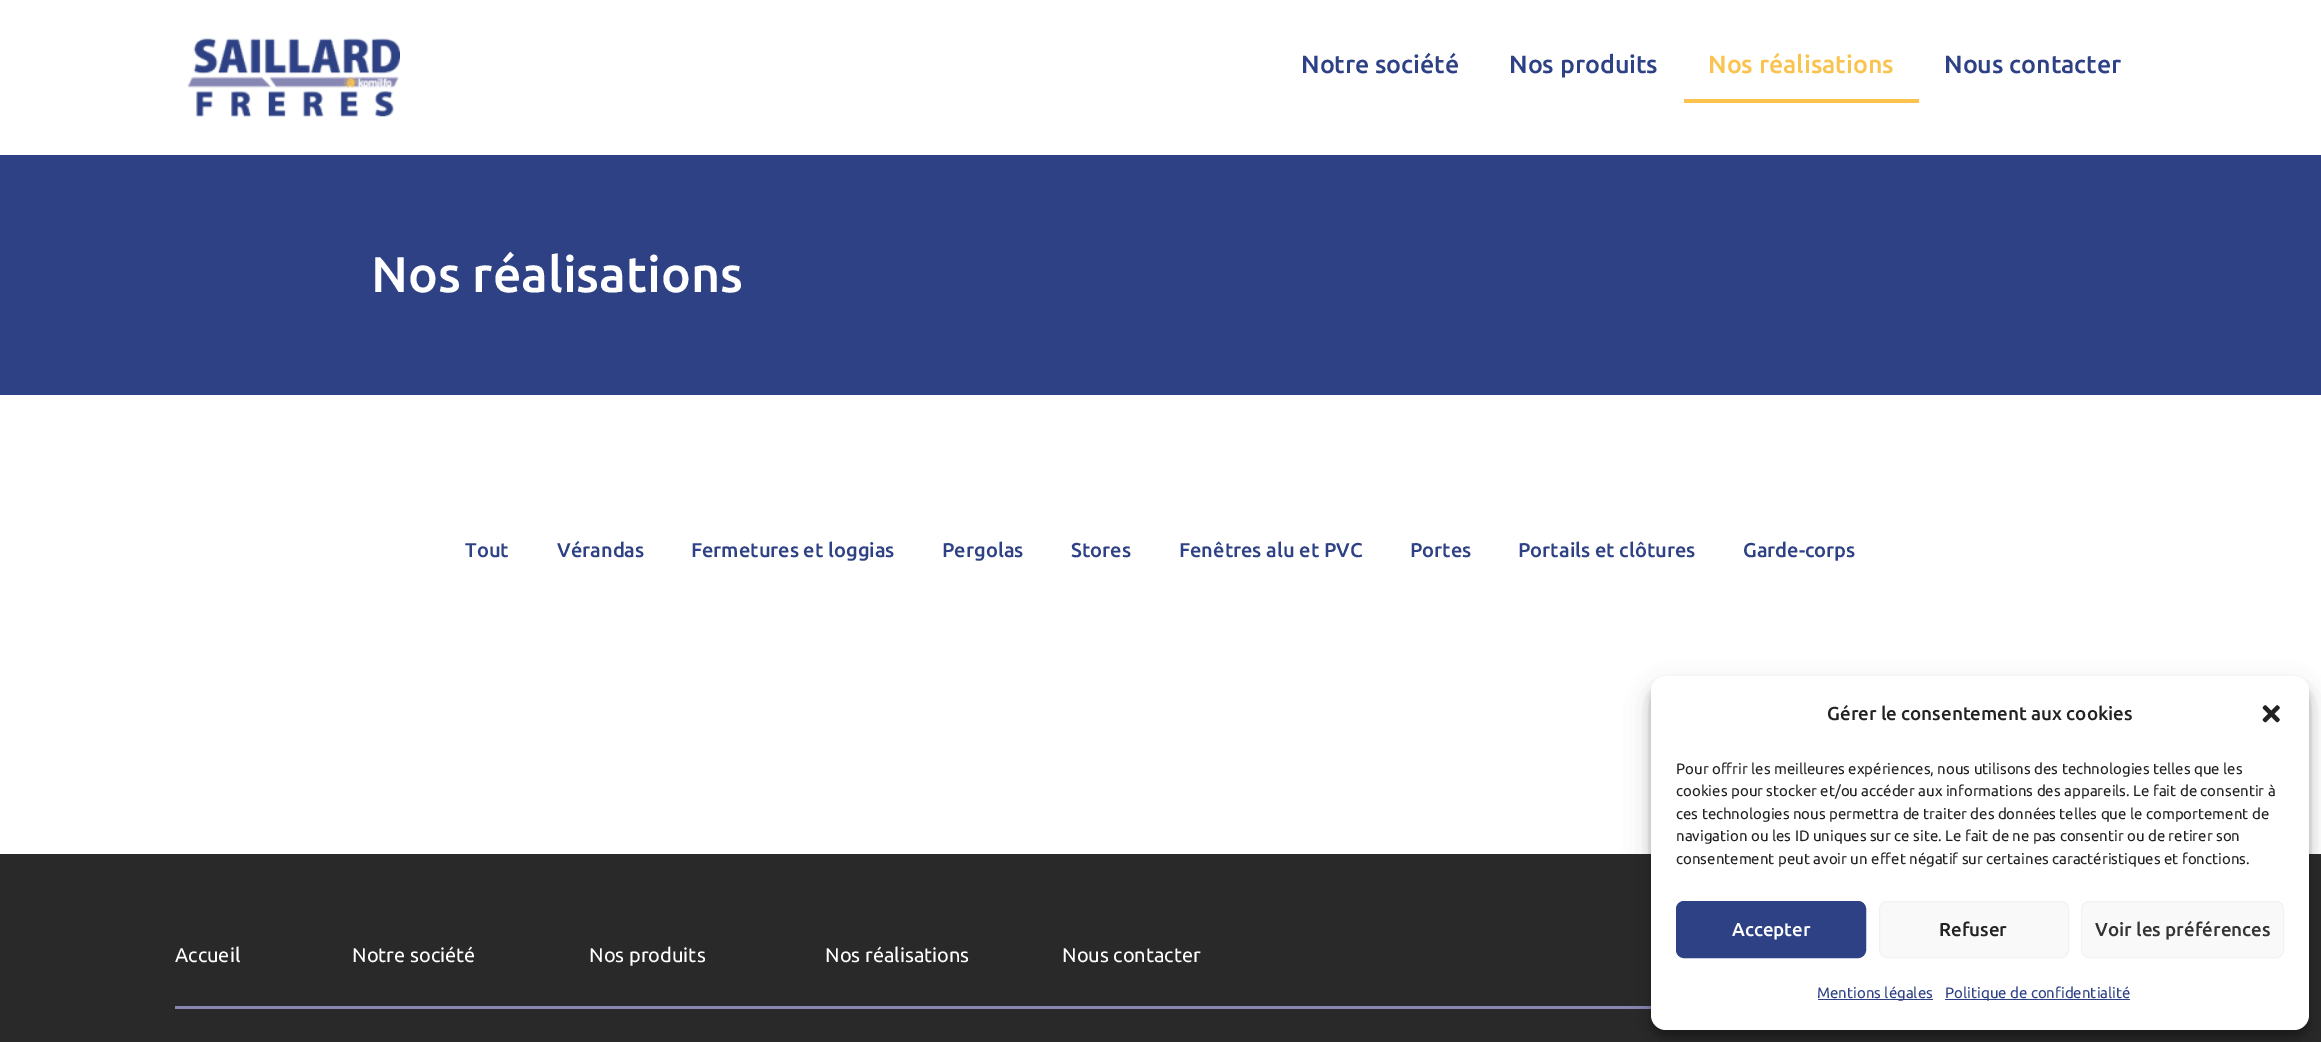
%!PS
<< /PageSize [2321 1042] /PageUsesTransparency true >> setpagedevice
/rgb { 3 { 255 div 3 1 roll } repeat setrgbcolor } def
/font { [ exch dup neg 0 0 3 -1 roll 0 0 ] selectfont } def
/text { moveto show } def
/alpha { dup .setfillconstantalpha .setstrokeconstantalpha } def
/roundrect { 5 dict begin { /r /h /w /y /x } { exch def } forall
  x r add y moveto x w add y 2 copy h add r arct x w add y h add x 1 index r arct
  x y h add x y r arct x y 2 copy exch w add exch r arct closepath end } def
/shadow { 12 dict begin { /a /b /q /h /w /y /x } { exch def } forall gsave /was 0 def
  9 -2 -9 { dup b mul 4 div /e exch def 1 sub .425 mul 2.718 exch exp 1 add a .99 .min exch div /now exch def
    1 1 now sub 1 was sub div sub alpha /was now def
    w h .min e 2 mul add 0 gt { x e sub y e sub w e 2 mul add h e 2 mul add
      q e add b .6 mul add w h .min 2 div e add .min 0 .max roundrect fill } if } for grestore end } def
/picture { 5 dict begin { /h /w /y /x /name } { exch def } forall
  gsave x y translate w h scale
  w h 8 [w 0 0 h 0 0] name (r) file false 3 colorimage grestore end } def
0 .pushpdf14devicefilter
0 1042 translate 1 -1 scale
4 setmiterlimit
255 255 255 rgb
0 0 2321 1042 rectfill
(img_01.rgb) 187 38 213 79 picture
250 194 78 rgb
1684 99 235 4 rectfill
45 65 132 rgb
0 155 2321 240 rectfill
41 41 41 rgb
0 854 2321 188 rectfill
136 135 180 rgb
175 1006 1476 3 rectfill
0 0 0 rgb
1651 684 658 354 15 4 0.23 shadow
1651 689 658 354 15 12.5 0.19 shadow
255 255 255 rgb
1651 676 658 354 15 roundrect fill
(img_02.rgb) 2262 705 18 18 picture
45 65 132 rgb
1676.5 901.5 189 56 7.5 roundrect gsave fill grestore
stroke
249 249 249 rgb
1879.5 901.5 189 56 7.5 roundrect gsave fill grestore
242 242 242 rgb
stroke
249 249 249 rgb
2081.5 901.5 202 56 7.5 roundrect gsave fill grestore
242 242 242 rgb
stroke
45 65 132 rgb
1818 999 115 1 rectfill
1945 999 185 1 rectfill
/Ubuntu-Medium 25 font
(Notre société) 1301 73 text
(Nos produits) 1509 73 text
250 194 78 rgb
(Nos réalisations) 1708 73 text
45 65 132 rgb
(Nous contacter) 1944 73 text
/Ubuntu-Medium 50 font
255 255 255 rgb
(Nos réalisations) 371 292 text
/Ubuntu-Medium 20 font
45 65 132 rgb
(Tout) 465 557 text
(Vérandas) 557 557 text
(Fermetures et loggias) 691 557 text
(Pergolas) 942 557 text
(Stores) 1071 557 text
(Fenêtres alu et PVC) 1179 557 text
(Portes) 1410 557 text
(Portails et clôtures) 1518 557 text
(Garde-corps) 1743 557 text
/Ubuntu-Regular 20 font
255 255 255 rgb
(Accueil) 175 962 text
(Notre société) 352 962 text
(Nos produits) 589 962 text
(Nos réalisations) 825 962 text
(Nous contacter) 1062 962 text
/Ubuntu-Medium 18.75 font
34 34 34 rgb
(Gérer le consentement aux cookies) 1827 720 text
/Ubuntu-Regular 15 font
(Pour offrir les meilleures expériences, nous utilisons des technologies telles que les) 1676 774 text
(cookies pour stocker et/ou accéder aux informations des appareils. Le fait de consentir à) 1676 796 text
(ces technologies nous permettra de traiter des données telles que le comportement de) 1676 819 text
(navigation ou les ID uniques sur ce site. Le fait de ne pas consentir ou de retirer son) 1676 841 text
(consentement peut avoir un effet négatif sur certaines caractéristiques et fonctions.) 1676 864 text
/Ubuntu-Medium 18.75 font
255 255 255 rgb
(Accepter) 1732 936 text
34 34 34 rgb
(Refuser) 1939 936 text
51 51 51 rgb
(Voir les préférences) 2095 936 text
/Ubuntu-Regular 15 font
45 65 132 rgb
(Mentions légales) 1817 998 text
(Politique de confidentialité) 1945 998 text
.poppdf14devicefilter showpage
